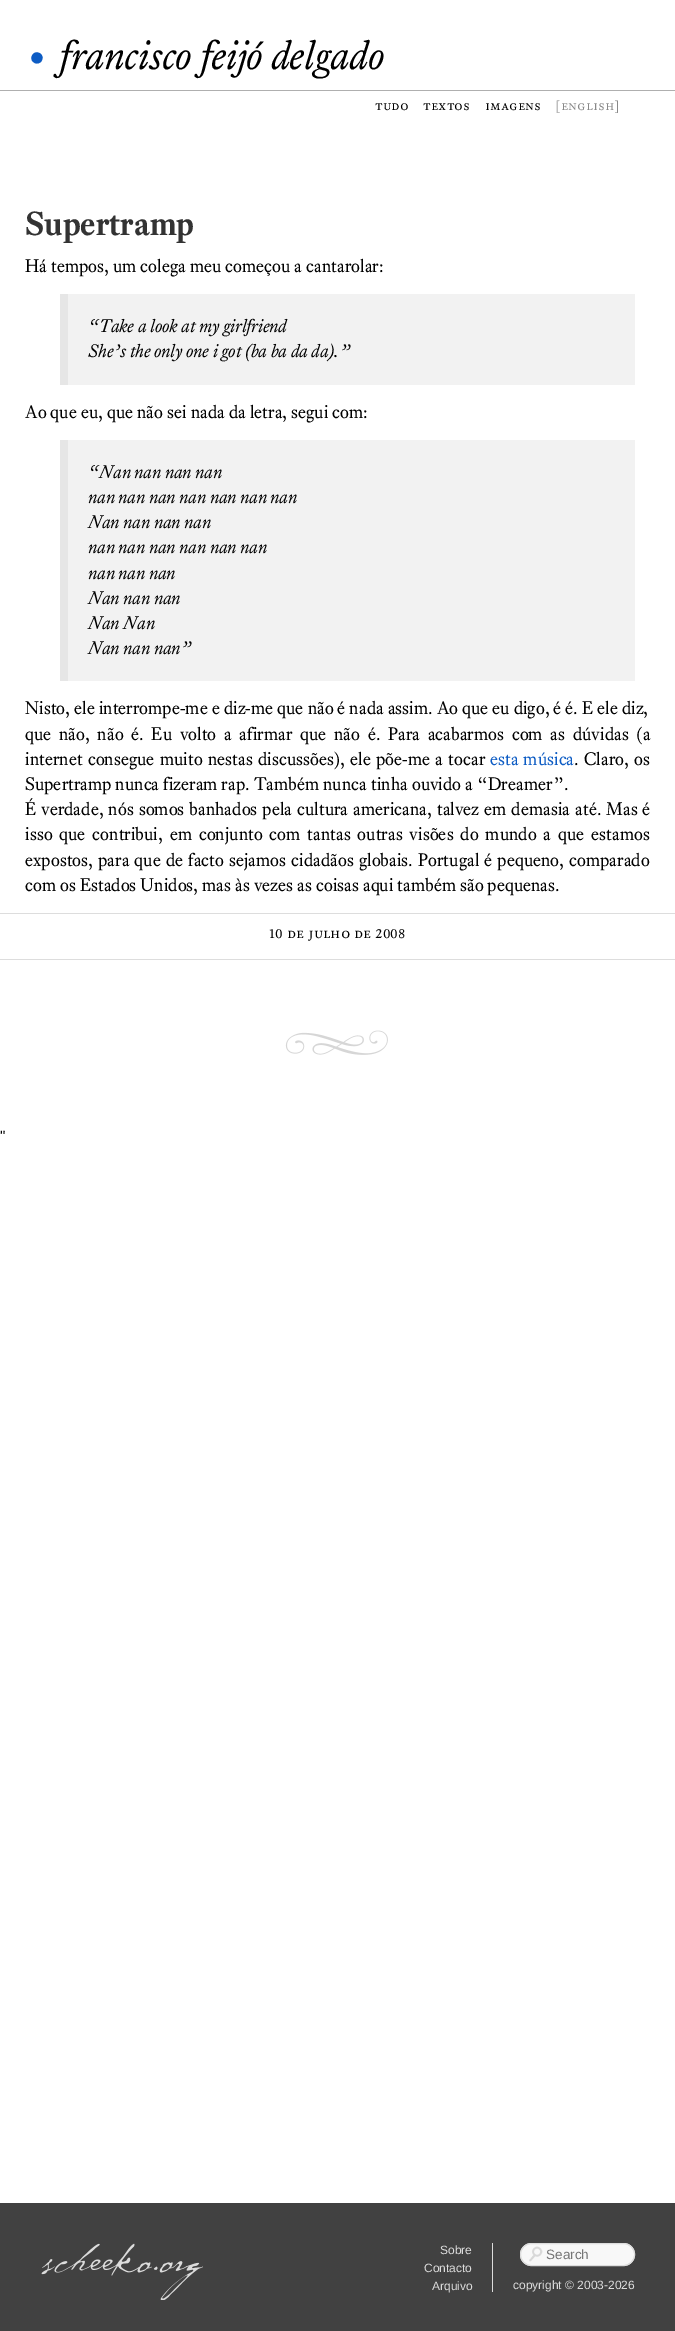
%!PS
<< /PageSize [675 2331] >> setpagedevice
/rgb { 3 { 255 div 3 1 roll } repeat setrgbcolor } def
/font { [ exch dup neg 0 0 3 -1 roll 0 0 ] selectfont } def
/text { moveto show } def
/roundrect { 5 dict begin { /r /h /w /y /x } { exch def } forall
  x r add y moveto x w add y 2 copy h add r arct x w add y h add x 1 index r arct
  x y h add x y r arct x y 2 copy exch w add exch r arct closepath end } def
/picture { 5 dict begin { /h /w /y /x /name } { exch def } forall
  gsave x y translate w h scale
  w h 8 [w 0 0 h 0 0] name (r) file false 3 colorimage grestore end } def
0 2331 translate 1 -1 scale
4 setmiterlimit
255 255 255 rgb
0 0 675 2331 rectfill
175 175 175 rgb
0 90 675 1 rectfill
242 242 242 rgb
68 294 567 91 rectfill
230 230 230 rgb
60 294 8 91 rectfill
242 242 242 rgb
68 440 567 241 rectfill
230 230 230 rgb
60 440 8 241 rectfill
221 221 221 rgb
0 913 675 1 rectfill
0 959 675 1 rectfill
(img_01.rgb) 285 1030 103 25 picture
65 65 65 rgb
0 2203 675 128 rectfill
(img_02.rgb) 41 2243 162 57 picture
220 220 220 rgb
492 2243 1 49 rectfill
248 248 248 rgb
520 2243 115 23 11.5 roundrect fill
(img_03.rgb) 529 2246 14 16 picture
221 221 221 rgb
520.5 2243.5 114 22 11 roundrect stroke
/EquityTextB-Regular 42 font
13 92 196 rgb
(•) 25 69 text
/EquityTextB-Italic 40 font
0 0 0 rgb
(francisco feijó delgado) 59 69 text
/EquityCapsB-Regular 13 font
(tudo) 375 110 text
(textos) 423 110 text
(imagens) 485 110 text
136 136 136 rgb
([english]) 555 110 text
/EquityTextB-Bold 33 font
51 51 51 rgb
(Supertramp) 25 235 text
/EquityTextB-Regular 18 font
0 0 0 rgb
(Há tempos, um colega meu começou a cantarolar:) 25 272 text
/EquityTextB-Italic 18 font
(“Take a look at my girlfriend) 88 332 text
(She’s the only one i got \(ba ba da da\).”) 88 357 text
/EquityTextB-Regular 18 font
(Ao que eu, que não sei nada da letra, segui com:) 25 418 text
/EquityTextB-Italic 18 font
(“Nan nan nan nan) 88 478 text
(nan nan nan nan nan nan nan) 88 503 text
(Nan nan nan nan) 88 528 text
(nan nan nan nan nan nan) 88 553 text
(nan nan nan) 88 579 text
(Nan nan nan) 88 604 text
(Nan Nan) 88 629 text
(Nan nan nan”) 88 654 text
/EquityTextB-Regular 18 font
(Nisto, ele interrompe-me e diz-me que não é nada assim. Ao que eu digo, é é. E ele diz,) 25 714 text
25 740 moveto 3.75 0 32 (que não, não é. Eu volto a afirmar que não é. Para acabarmos com as dúvidas \(a) widthshow
25 765 moveto 1.25 0 32 (internet consegue muito nestas discussões\), ele põe-me a tocar) widthshow
13 92 196 rgb
490 765 moveto 1 0 32 (esta música) widthshow
0 0 0 rgb
574 765 moveto 1.25 0 32 (. Claro, os) widthshow
(Supertramp nunca fizeram rap. Também nunca tinha ouvido a “Dreamer”.) 25 790 text
25 815 moveto 1 0 32 (É verdade, nós somos banhados pela cultura americana, talvez em demasia até. Mas é) widthshow
25 840 moveto 2.9 0 32 (isso que contribui, em conjunto com tantas outras visões do mundo a que estamos) widthshow
25 866 moveto 1.1 0 32 (expostos, para que de facto sejamos cidadãos globais. Portugal é pequeno, comparado) widthshow
(com os Estados Unidos, mas às vezes as coisas aqui também são pequenas.) 25 891 text
/EquityCapsB-Regular 14 font
(10 de julho de 2008) 269 938 text
/LiberationSans-Regular 15 font
(") 0 1141 text
/LiberationSans-Regular 12 font
220 220 220 rgb
(Sobre) 440 2254 text
(Contacto) 424 2272 text
(Arquivo) 432 2290 text
/LiberationSans-Regular 13.5 font
117 117 117 rgb
(Search) 546 2259 text
/LiberationSans-Regular 12 font
220 220 220 rgb
(copyright © 2003-2026) 513 2289 text
showpage
